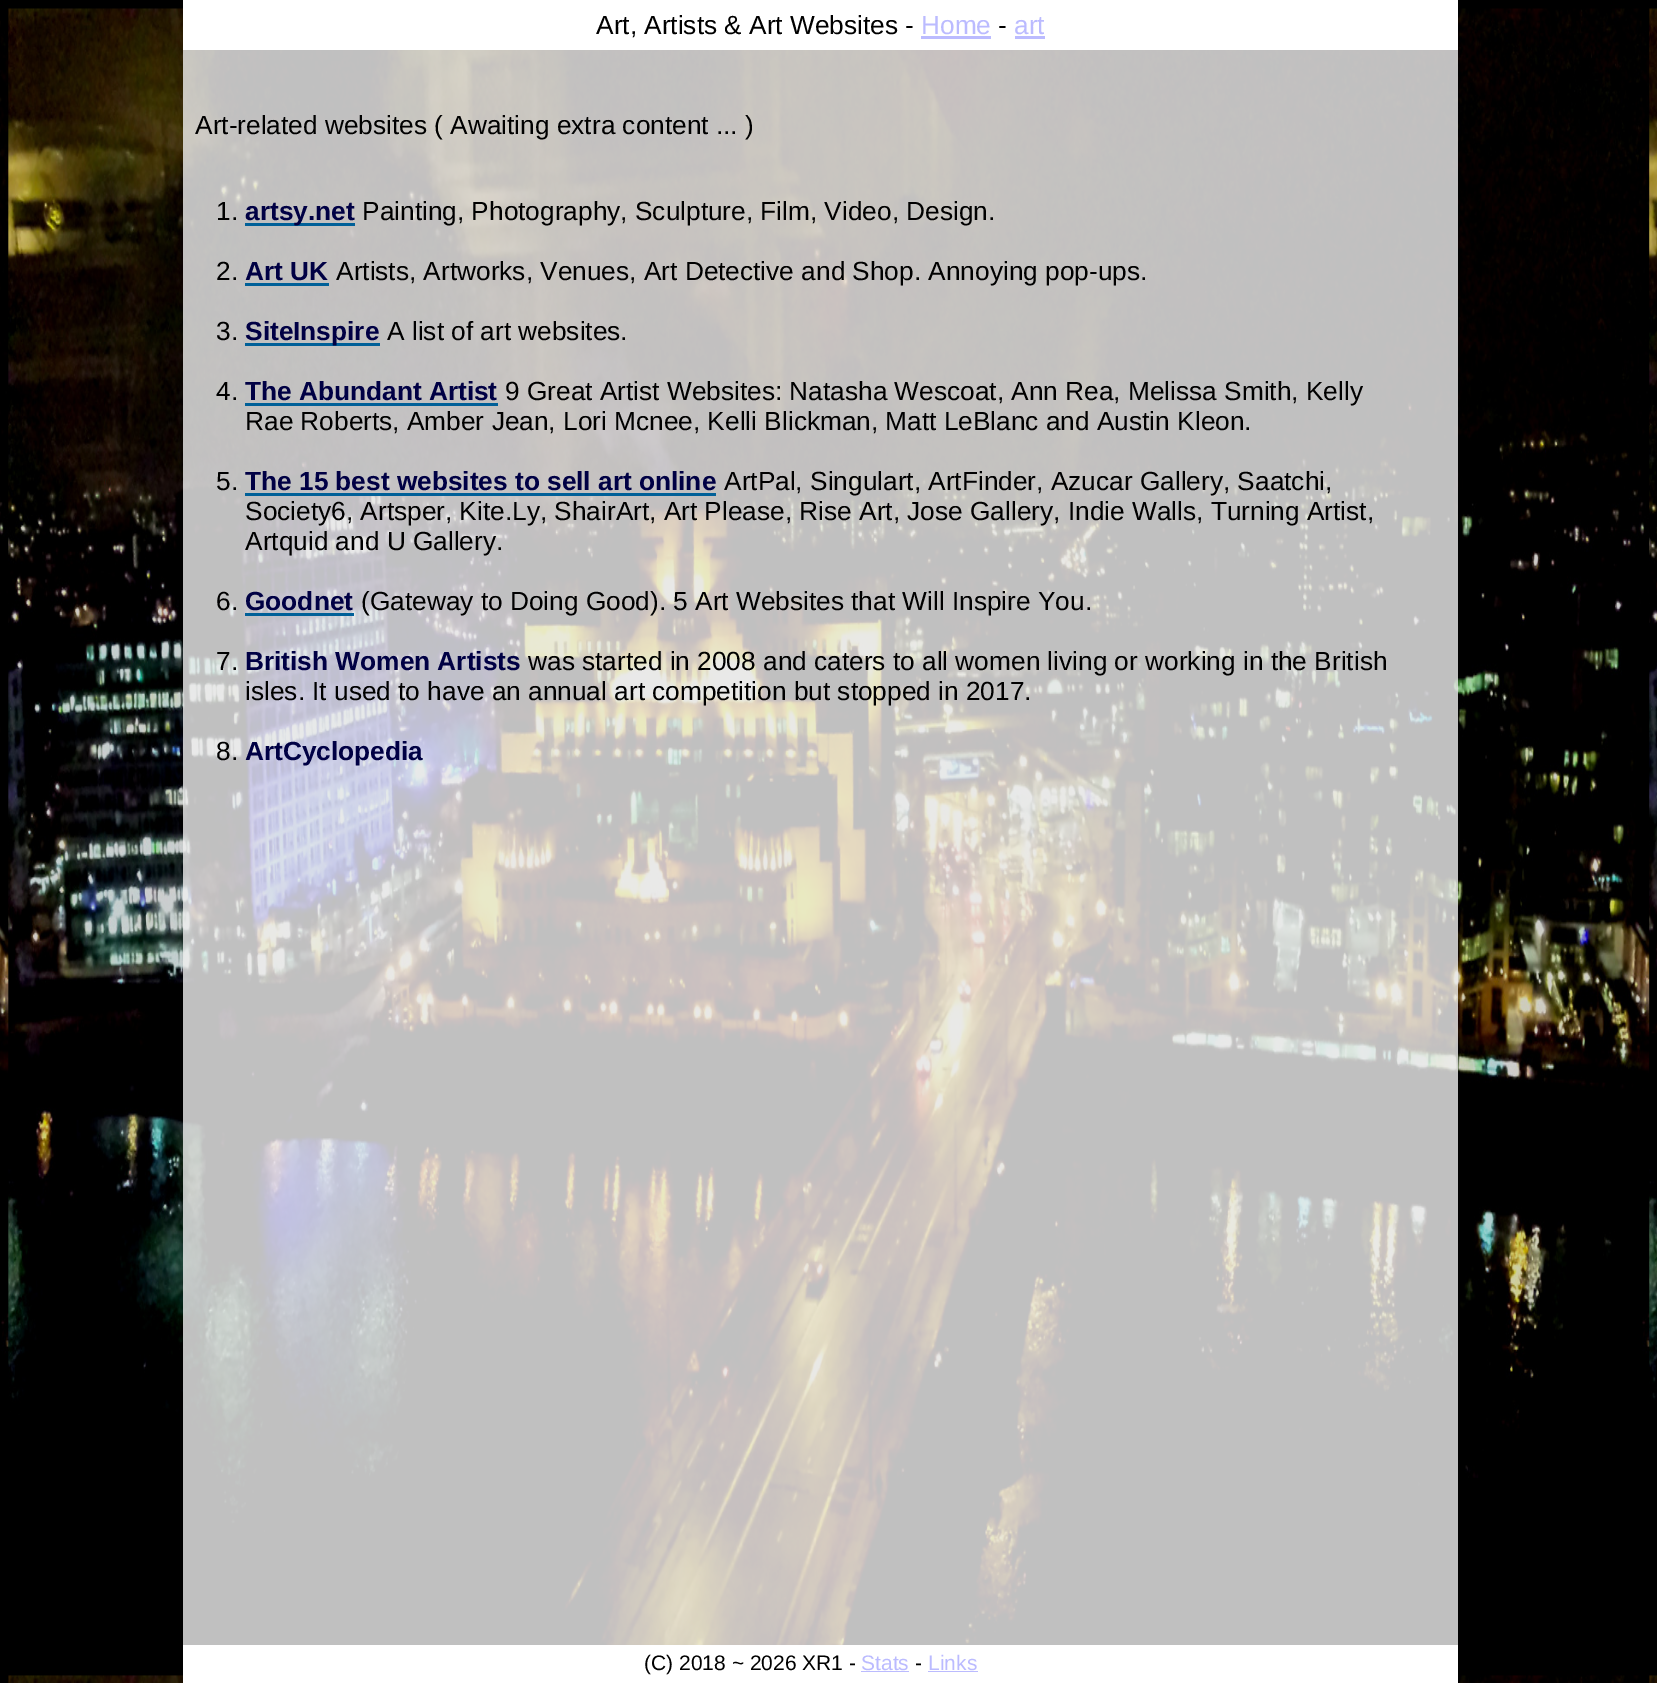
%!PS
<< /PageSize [1657 1683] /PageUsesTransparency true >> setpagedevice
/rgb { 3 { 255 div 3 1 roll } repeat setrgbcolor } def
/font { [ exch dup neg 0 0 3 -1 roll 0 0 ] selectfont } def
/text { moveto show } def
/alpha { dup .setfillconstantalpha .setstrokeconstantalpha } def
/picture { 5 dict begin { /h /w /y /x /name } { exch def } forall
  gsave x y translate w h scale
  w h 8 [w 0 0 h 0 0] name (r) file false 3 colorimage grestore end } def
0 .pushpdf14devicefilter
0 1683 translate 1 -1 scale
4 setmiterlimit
255 255 255 rgb
0 0 1657 1683 rectfill
(img_01.rgb) 0 0 1657 1683 picture
0.8 alpha
240 240 240 rgb
183 50 1275 1595 rectfill
1 alpha
255 255 255 rgb
183 0 1275 50 rectfill
187 187 255 rgb
921 36 70 3 rectfill
1015 36 30 3 rectfill
0 96 152 rgb
245 223 110 3 rectfill
245 283 84 3 rectfill
245 343 135 3 rectfill
245 403 253 3 rectfill
245 493 471 3 rectfill
245 613 109 3 rectfill
255 255 255 rgb
183 1645 1275 38 rectfill
187 187 255 rgb
861 1671 48 1 rectfill
928 1671 50 1 rectfill
/LiberationSans-Regular 26.25 font
0 0 0 rgb
(Art, Artists & Art Websites -) 596 34 text
187 187 255 rgb
(Home) 921 34 text
0 0 0 rgb
(-) 998 34 text
187 187 255 rgb
(art) 1014 34 text
0 0 0 rgb
(Art-related websites \( Awaiting extra content ... \)) 195 134 text
(1.) 216 220 text
/LiberationSans-Bold 26.25 font
0 0 68 rgb
(artsy.net) 245 220 text
/LiberationSans-Regular 26.25 font
0 0 0 rgb
(Painting, Photography, Sculpture, Film, Video, Design.) 362 220 text
(2.) 216 280 text
/LiberationSans-Bold 26.25 font
0 0 68 rgb
(Art UK) 245 280 text
/LiberationSans-Regular 26.25 font
0 0 0 rgb
(Artists, Artworks, Venues, Art Detective and Shop. Annoying pop-ups.) 336 280 text
(3.) 216 340 text
/LiberationSans-Bold 26.25 font
0 0 68 rgb
(SiteInspire) 245 340 text
/LiberationSans-Regular 26.25 font
0 0 0 rgb
(A list of art websites.) 387 340 text
(4.) 216 400 text
/LiberationSans-Bold 26.25 font
0 0 68 rgb
(The Abundant Artist) 245 400 text
/LiberationSans-Regular 26.25 font
0 0 0 rgb
(9 Great Artist Websites: Natasha Wescoat, Ann Rea, Melissa Smith, Kelly) 505 400 text
(Rae Roberts, Amber Jean, Lori Mcnee, Kelli Blickman, Matt LeBlanc and Austin Kleon.) 245 430 text
(5.) 216 490 text
/LiberationSans-Bold 26.25 font
0 0 68 rgb
(The 15 best websites to sell art online) 245 490 text
/LiberationSans-Regular 26.25 font
0 0 0 rgb
(ArtPal, Singulart, ArtFinder, Azucar Gallery, Saatchi,) 724 490 text
(Society6, Artsper, Kite.Ly, ShairArt, Art Please, Rise Art, Jose Gallery, Indie Walls, Turning Artist,) 245 520 text
(Artquid and U Gallery.) 245 550 text
(6.) 216 610 text
/LiberationSans-Bold 26.25 font
0 0 68 rgb
(Goodnet) 245 610 text
/LiberationSans-Regular 26.25 font
0 0 0 rgb
(\(Gateway to Doing Good\). 5 Art Websites that Will Inspire You.) 361 610 text
(7.) 216 670 text
/LiberationSans-Bold 26.25 font
0 0 68 rgb
(British Women Artists) 245 670 text
/LiberationSans-Regular 26.25 font
0 0 0 rgb
(was started in 2008 and caters to all women living or working in the British) 528 670 text
(isles. It used to have an annual art competition but stopped in 2017.) 245 700 text
(8.) 216 760 text
/LiberationSans-Bold 26.25 font
0 0 68 rgb
(ArtCyclopedia) 245 760 text
/LiberationSans-Regular 21 font
0 0 0 rgb
(\(C\) 2018 ~ 2026 XR1 -) 644 1670 text
187 187 255 rgb
(Stats) 861 1670 text
0 0 0 rgb
(-) 915 1670 text
187 187 255 rgb
(Links) 928 1670 text
.poppdf14devicefilter showpage
